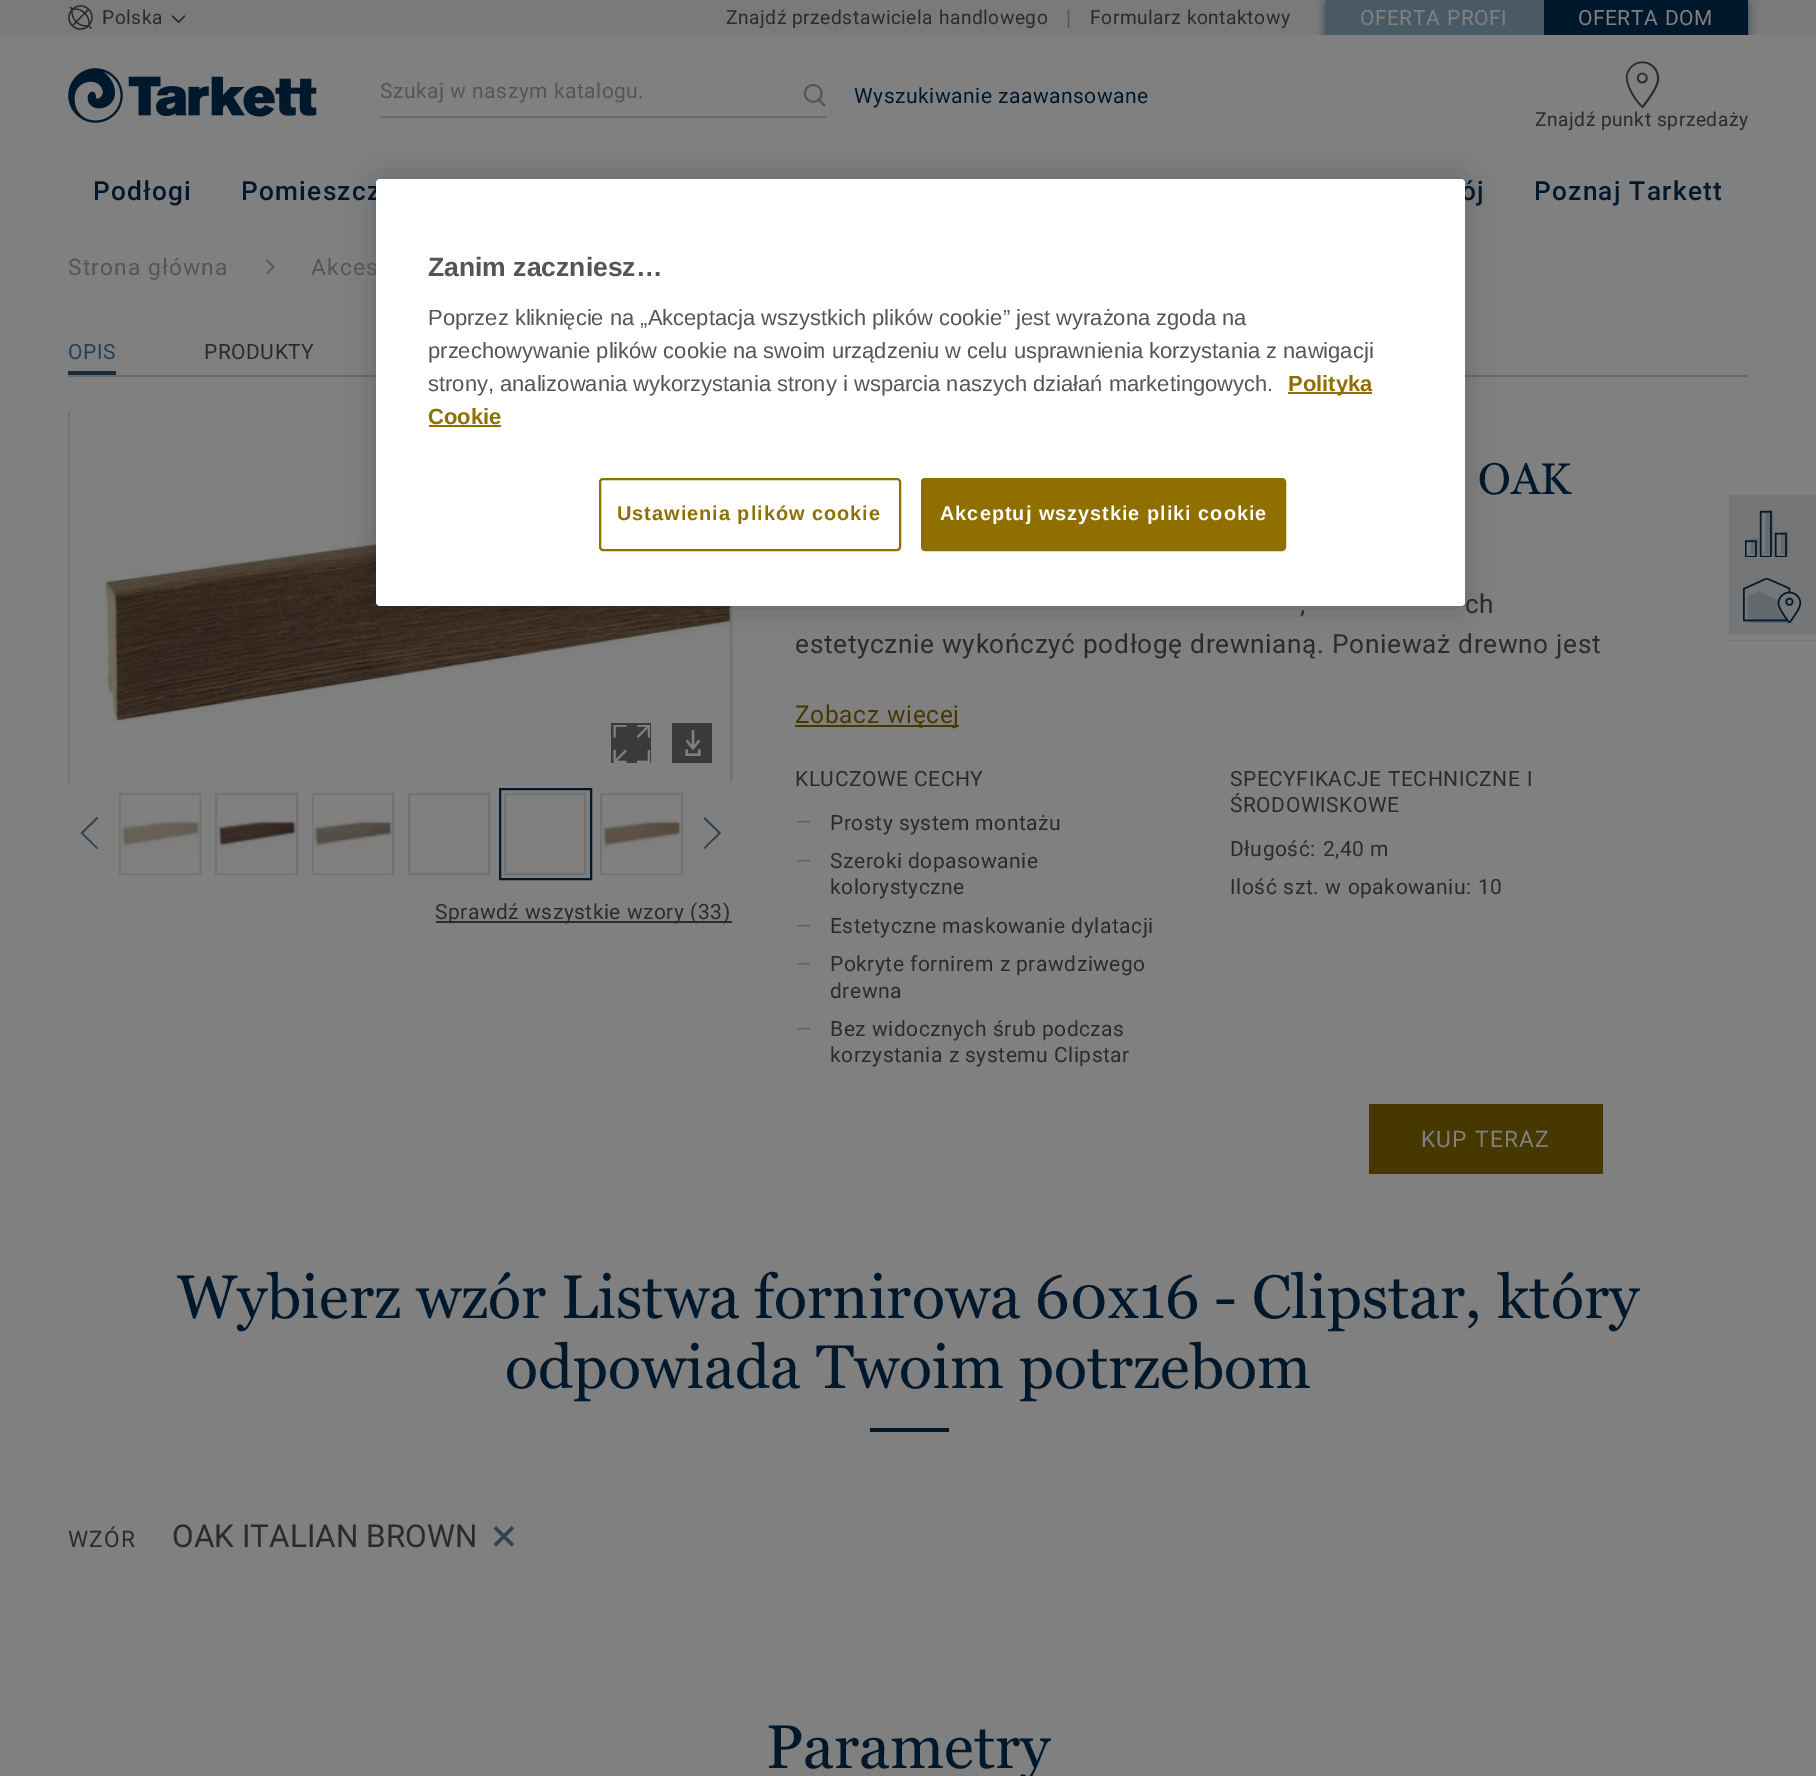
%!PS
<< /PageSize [1816 1776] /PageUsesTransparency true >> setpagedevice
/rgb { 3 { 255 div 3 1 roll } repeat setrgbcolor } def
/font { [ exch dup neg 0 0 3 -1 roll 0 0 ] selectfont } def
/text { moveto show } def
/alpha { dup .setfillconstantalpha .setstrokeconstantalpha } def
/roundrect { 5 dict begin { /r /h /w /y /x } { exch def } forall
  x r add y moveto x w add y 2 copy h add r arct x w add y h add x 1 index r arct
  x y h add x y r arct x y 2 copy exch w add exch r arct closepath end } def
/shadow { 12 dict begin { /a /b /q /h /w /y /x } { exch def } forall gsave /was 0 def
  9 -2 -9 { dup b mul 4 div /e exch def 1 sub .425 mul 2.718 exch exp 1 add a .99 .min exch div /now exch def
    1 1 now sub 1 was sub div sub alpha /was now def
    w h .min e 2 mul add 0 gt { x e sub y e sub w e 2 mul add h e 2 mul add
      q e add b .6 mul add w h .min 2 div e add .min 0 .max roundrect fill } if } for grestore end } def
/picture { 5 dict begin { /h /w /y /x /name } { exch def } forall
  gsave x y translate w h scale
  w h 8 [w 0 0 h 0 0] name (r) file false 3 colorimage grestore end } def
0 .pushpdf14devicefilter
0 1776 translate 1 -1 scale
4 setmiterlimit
128 128 128 rgb
0 0 1816 1776 rectfill
122 122 122 rgb
0 0 1816 35 rectfill
(img_01.rgb) 68 5 25 25 picture
(img_02.rgb) 172 15 14 9 picture
gsave
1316 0 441 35 rectclip
49 71 84 rgb
1325 4 423 35 0 4.5 1 shadow
grestore
73 90 100 rgb
1325 0 219 35 rectfill
0 24 44 rgb
1544 0 204 35 rectfill
(img_03.rgb) 68 68 249 55 picture
106 106 107 rgb
380 116 446 2 rectfill
(img_04.rgb) 803 84 23 23 picture
(img_05.rgb) 1625 61 35 48 picture
(img_06.rgb) 266 259 9 16 picture
26 45 61 rgb
68 371 48 4 rectfill
102 107 111 rgb
68 375 1680 2 rectfill
114 114 114 rgb
2 setlinewidth
69 412 662 369 rectstroke
128 128 128 rgb
70 411 660 371 rectfill
(img_07.rgb) 90 492 640 231 picture
58 58 58 rgb
611 723 40 40 rectfill
(img_08.rgb) 613 725 38 38 picture
672 723 40 40 rectfill
(img_09.rgb) 685 730 16 26 picture
51 65 77 rgb
80.5 833 moveto 16.5 -16 rlineto 1 1.5 rlineto -15 14.5 rlineto 15 15 rlineto -1 1 rlineto closepath eofill
114 114 114 rgb
120 794 80 80 rectstroke
(img_10.rgb) 120 795 80 79 picture
216 794 81 80 rectstroke
(img_11.rgb) 217 820 79 54 picture
313 794 80 80 rectstroke
(img_12.rgb) 313 795 79 79 picture
409 794 80 80 rectstroke
0 24 44 rgb
500 789 91 90 rectstroke
114 114 114 rgb
505 794 80 80 rectstroke
601 794 81 80 rectstroke
(img_13.rgb) 602 820 79 54 picture
gsave
704 817 17 32 rectclip
51 65 77 rgb
721 833 moveto -16.5 16 rlineto -1 -1 rlineto 15 -15 rlineto -15 -14.5 rlineto 1 -1.5 rlineto closepath eofill
grestore
42 43 45 rgb
436 921 296 2 rectfill
71 56 0 rgb
795 725 164 2 rectfill
1369 1104 234 70 rectfill
116 118 120 rgb
1729 495 87 146 rectfill
(img_14.rgb) 1745 509 44 48 picture
128 128 128 rgb
1729 635 87 5 rectfill
(img_15.rgb) 1743 578 59 45 picture
0 24 44 rgb
870 1428 79 4 rectfill
(img_16.rgb) 494 1526 21 21 picture
0 0 0 rgb
376 179 1089 427 4 16 0.2 shadow
/Roboto-Regular 19.25 font
42 43 45 rgb
102 24 moveto 0.5 0 (Polska) ashow
726 24 moveto 0.5 0 (Znajdź przedstawiciela handlowego) ashow
/LiberationSans-Regular 19.25 font
84 85 86 rgb
1066 24 moveto 2 0 (|) ashow
/Roboto-Regular 19.25 font
42 43 45 rgb
1090 24 moveto 0.5 0 (Formularz kontaktowy) ashow
/Roboto-Regular 21 font
128 128 128 rgb
1360 25 moveto 1 0 32 0.5 0 (OFERTA PROFI) awidthshow
1578 25 moveto 1 0 32 0.5 0 (OFERTA DOM) awidthshow
84 85 86 rgb
380 98 moveto 0.5 0 (Szukaj w naszym katalogu.) ashow
0 24 44 rgb
854 103 moveto 0.5 0 (Wyszukiwanie zaawansowane) ashow
/Roboto-Regular 19.25 font
42 43 45 rgb
1535 126 moveto 0.5 0 (Znajdź punkt sprzedaży) ashow
/Roboto-Medium 26.25 font
0 24 44 rgb
93 200 moveto 1.25 0 (Podłogi) ashow
241 200 moveto 1.25 0 (Pomieszcz) ashow
1461 200 moveto 1.25 0 (ój) ashow
1534 200 moveto 1.25 0 (Poznaj Tarkett) ashow
/Roboto-Regular 22.75 font
84 85 86 rgb
68 275 moveto 1.1 0 (Strona główna) ashow
311 275 moveto 1.1 0 (Akces) ashow
/Roboto-Regular 21 font
35 63 87 rgb
68 359 moveto 0.5 0 (OPIS) ashow
42 43 45 rgb
204 359 moveto 0.5 0 (PRODUKTY) ashow
435 919 moveto 0.5 0 (Sprawdź wszystkie wzory \(33\)) ashow
/Georgia-Regular 44 font
0 24 44 rgb
(OAK) 1478 494 text
/Roboto-Regular 26.25 font
42 43 45 rgb
1300 613 moveto 0.67 0 (,) ashow
1465 613 moveto 0.67 0 (ch) ashow
795 653 moveto 0.67 0 (estetycznie wykończyć podłogę drewnianą. Ponieważ drewno jest) ashow
/Roboto-Regular 24.5 font
71 56 0 rgb
795 723 moveto 1 0 32 0.6 0 (Zobacz więcej) awidthshow
/Roboto-Regular 21 font
42 43 45 rgb
795 786 moveto 0.5 0 (KLUCZOWE CECHY) ashow
/Roboto-Regular 26.25 font
101 102 102 rgb
795 831 moveto 0.5 0 (–) ashow
/Roboto-Regular 21 font
42 43 45 rgb
830 830 moveto 0.5 0 (Prosty system montażu) ashow
/Roboto-Regular 26.25 font
101 102 102 rgb
795 870 moveto 0.5 0 (–) ashow
/Roboto-Regular 21 font
42 43 45 rgb
830 868 moveto 0.5 0 (Szeroki dopasowanie) ashow
830 894 moveto 0.5 0 (kolorystyczne) ashow
/Roboto-Regular 26.25 font
101 102 102 rgb
795 935 moveto 0.5 0 (–) ashow
/Roboto-Regular 21 font
42 43 45 rgb
830 933 moveto 0.5 0 (Estetyczne maskowanie dylatacji) ashow
/Roboto-Regular 26.25 font
101 102 102 rgb
795 973 moveto 0.5 0 (–) ashow
/Roboto-Regular 21 font
42 43 45 rgb
830 971 moveto 0.5 0 (Pokryte fornirem z prawdziwego) ashow
830 998 moveto 0.5 0 (drewna) ashow
/Roboto-Regular 26.25 font
101 102 102 rgb
795 1038 moveto 0.5 0 (–) ashow
/Roboto-Regular 21 font
42 43 45 rgb
830 1036 moveto 0.5 0 (Bez widocznych śrub podczas) ashow
830 1062 moveto 0.5 0 (korzystania z systemu Clipstar) ashow
1230 786 moveto 1 0 32 0.5 0 (SPECYFIKACJE TECHNICZNE I) awidthshow
1230 812 moveto 0.5 0 (ŚRODOWISKOWE) ashow
1230 856 moveto 0.5 0 (Długość:) ashow
1323 856 moveto 0.5 0 (2,40 m) ashow
1230 894 moveto 0.5 0 32 0.5 0 (Ilość szt. w opakowaniu:) awidthshow
1478 894 moveto 0.5 0 (10) ashow
/Roboto-Regular 22.75 font
128 128 128 rgb
1421 1147 moveto 1 0 32 1.1 0 (KUP TERAZ) awidthshow
/Georgia-Regular 61.25 font
0 24 44 rgb
(Wybierz wzór Listwa fornirowa 60x16 - Clipstar, który) 177 1318 text
(odpowiada Twoim potrzebom) 505 1388 text
/Roboto-Regular 22.75 font
42 43 45 rgb
68 1547 moveto 1.1 0 (WZÓR) ashow
/Roboto-Regular 31.5 font
(OAK ITALIAN BROWN) 172 1547 text
/Georgia-Regular 61.25 font
0 24 44 rgb
(Parametry) 766 1768 text
255 255 255 rgb
376 179 1089 427 4 roundrect fill
/LiberationSans-Bold 26.5 font
84 85 86 rgb
(Zanim zaczniesz…) 428 276 text
/LiberationSans-Regular 21.95 font
(Poprzez kliknięcie na „Akceptacja wszystkich plików cookie” jest wyrażona zgoda na) 428 325 text
(przechowywanie plików cookie na swoim urządzeniu w celu usprawnienia korzystania z nawigacji) 428 358 text
(strony, analizowania wykorzystania strony i wsparcia naszych działań marketingowych.) 428 391 text
142 111 0 rgb
1288 392 84 2 rectfill
/LiberationSans-Bold 21.95 font
(Polityka) 1288 391 text
(Cookie) 428 424 text
429 425 72 2 rectfill
600 479 300 71 3 roundrect stroke
/LiberationSans-Bold 19.9 font
617 520 moveto 1 0 (Ustawienia plików cookie) ashow
922 479 363 71 3 roundrect gsave fill grestore
stroke
255 255 255 rgb
940 520 moveto 1 0 (Akceptuj wszystkie pliki cookie) ashow
.poppdf14devicefilter showpage
